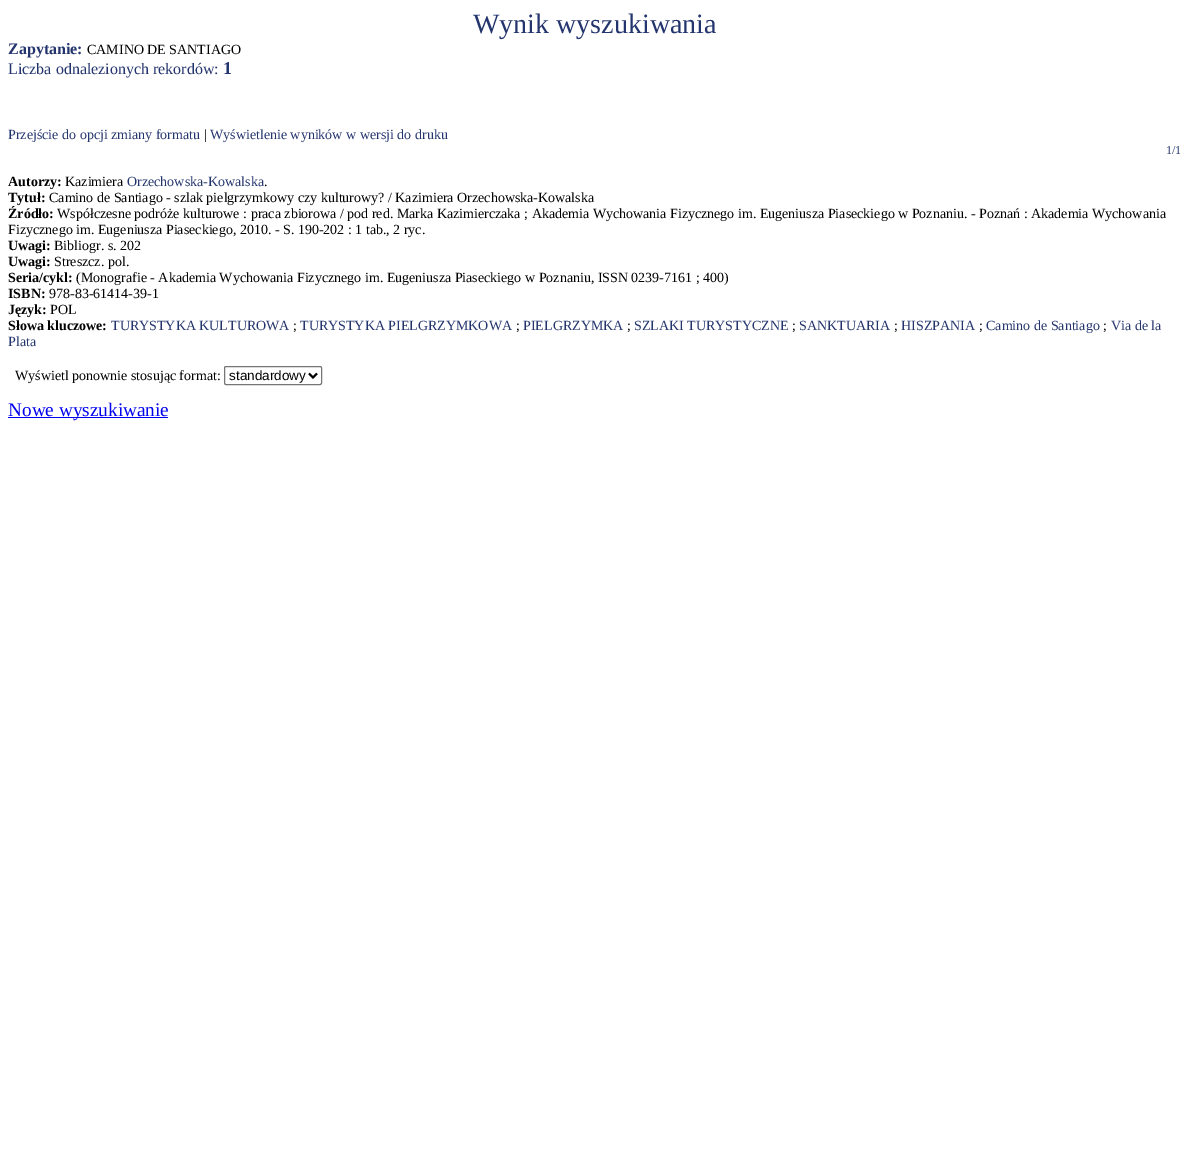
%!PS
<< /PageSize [1189 1174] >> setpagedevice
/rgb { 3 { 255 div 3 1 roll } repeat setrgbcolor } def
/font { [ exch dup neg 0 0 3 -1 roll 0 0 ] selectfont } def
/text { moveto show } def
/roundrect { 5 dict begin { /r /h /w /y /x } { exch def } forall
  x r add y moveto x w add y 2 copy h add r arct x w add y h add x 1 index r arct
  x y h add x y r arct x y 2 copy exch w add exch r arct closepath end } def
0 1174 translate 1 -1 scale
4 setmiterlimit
255 255 255 rgb
0 0 1189 1174 rectfill
118 118 118 rgb
224.5 366.5 97 18 1.5 roundrect stroke
0 0 0 rgb
2 setlinewidth
309 373.5 moveto 4 4 rlineto 4 -4 rlineto stroke
0 0 238 rgb
8 417 160 1 rectfill
/LiberationSerif-Regular 28 font
36 53 109 rgb
(Wynik wyszukiwania) 473 33 text
/LiberationSerif-Bold 16 font
(Zapytanie:) 8 54 text
/LiberationSerif-Regular 14 font
0 0 0 rgb
(CAMINO DE SANTIAGO) 87 54 text
/LiberationSerif-Regular 16 font
36 53 109 rgb
(Liczba odnalezionych rekordów:) 8 74 text
/LiberationSerif-Bold 18 font
(1) 223 74 text
/LiberationSerif-Regular 14 font
(Przejście do opcji zmiany formatu) 8 139 text
0 0 0 rgb
(|) 204 139 text
36 53 109 rgb
(Wyświetlenie wyników w wersji do druku) 210 139 text
/LiberationSerif-Regular 12 font
(1/1) 1166 154 text
/LiberationSerif-Bold 14 font
0 0 0 rgb
(Autorzy:) 8 186 text
/LiberationSerif-Regular 14 font
(Kazimiera) 65 186 text
36 53 109 rgb
(Orzechowska-Kowalska) 127 186 text
0 0 0 rgb
(.) 264 186 text
/LiberationSerif-Bold 14 font
(Tytuł:) 8 202 text
/LiberationSerif-Regular 14 font
(Camino de Santiago - szlak pielgrzymkowy czy kulturowy? / Kazimiera Orzechowska-Kowalska) 49 202 text
/LiberationSerif-Bold 14 font
(Źródło:) 8 218 text
/LiberationSerif-Regular 14 font
(Współczesne podróże kulturowe : praca zbiorowa / pod red. Marka Kazimierczaka ; Akademia Wychowania Fizycznego im. Eugeniusza Piaseckiego w Poznaniu. - Poznań : Akademia Wychowania) 57 218 text
(Fizycznego im. Eugeniusza Piaseckiego, 2010. - S. 190-202 : 1 tab., 2 ryc.) 8 234 text
/LiberationSerif-Bold 14 font
(Uwagi:) 8 250 text
/LiberationSerif-Regular 14 font
(Bibliogr. s. 202) 54 250 text
/LiberationSerif-Bold 14 font
(Uwagi:) 8 266 text
/LiberationSerif-Regular 14 font
(Streszcz. pol.) 54 266 text
/LiberationSerif-Bold 14 font
(Seria/cykl:) 8 282 text
/LiberationSerif-Regular 14 font
(\(Monografie - Akademia Wychowania Fizycznego im. Eugeniusza Piaseckiego w Poznaniu, ISSN 0239-7161 ; 400\)) 76 282 text
/LiberationSerif-Bold 14 font
(ISBN:) 8 298 text
/LiberationSerif-Regular 14 font
(978-83-61414-39-1) 49 298 text
/LiberationSerif-Bold 14 font
(Język:) 8 314 text
/LiberationSerif-Regular 14 font
(POL) 50 314 text
/LiberationSerif-Bold 14 font
(Słowa kluczowe:) 8 330 text
/LiberationSerif-Regular 14 font
36 53 109 rgb
(TURYSTYKA KULTUROWA) 111 330 text
0 0 0 rgb
(;) 293 330 text
36 53 109 rgb
(TURYSTYKA PIELGRZYMKOWA) 300 330 text
0 0 0 rgb
(;) 516 330 text
36 53 109 rgb
(PIELGRZYMKA) 523 330 text
0 0 0 rgb
(;) 627 330 text
36 53 109 rgb
(SZLAKI TURYSTYCZNE) 634 330 text
0 0 0 rgb
(;) 792 330 text
36 53 109 rgb
(SANKTUARIA) 799 330 text
0 0 0 rgb
(;) 894 330 text
36 53 109 rgb
(HISZPANIA) 901 330 text
0 0 0 rgb
(;) 979 330 text
36 53 109 rgb
(Camino de Santiago) 986 330 text
0 0 0 rgb
(;) 1103 330 text
36 53 109 rgb
(Via de la) 1111 330 text
(Plata) 8 346 text
0 0 0 rgb
(Wyświetl ponownie stosując format:) 15 380 text
/LiberationSans-Regular 13.5 font
(standardowy) 229 380 text
/LiberationSerif-Regular 19.25 font
0 0 238 rgb
(Nowe wyszukiwanie) 8 416 text
showpage
